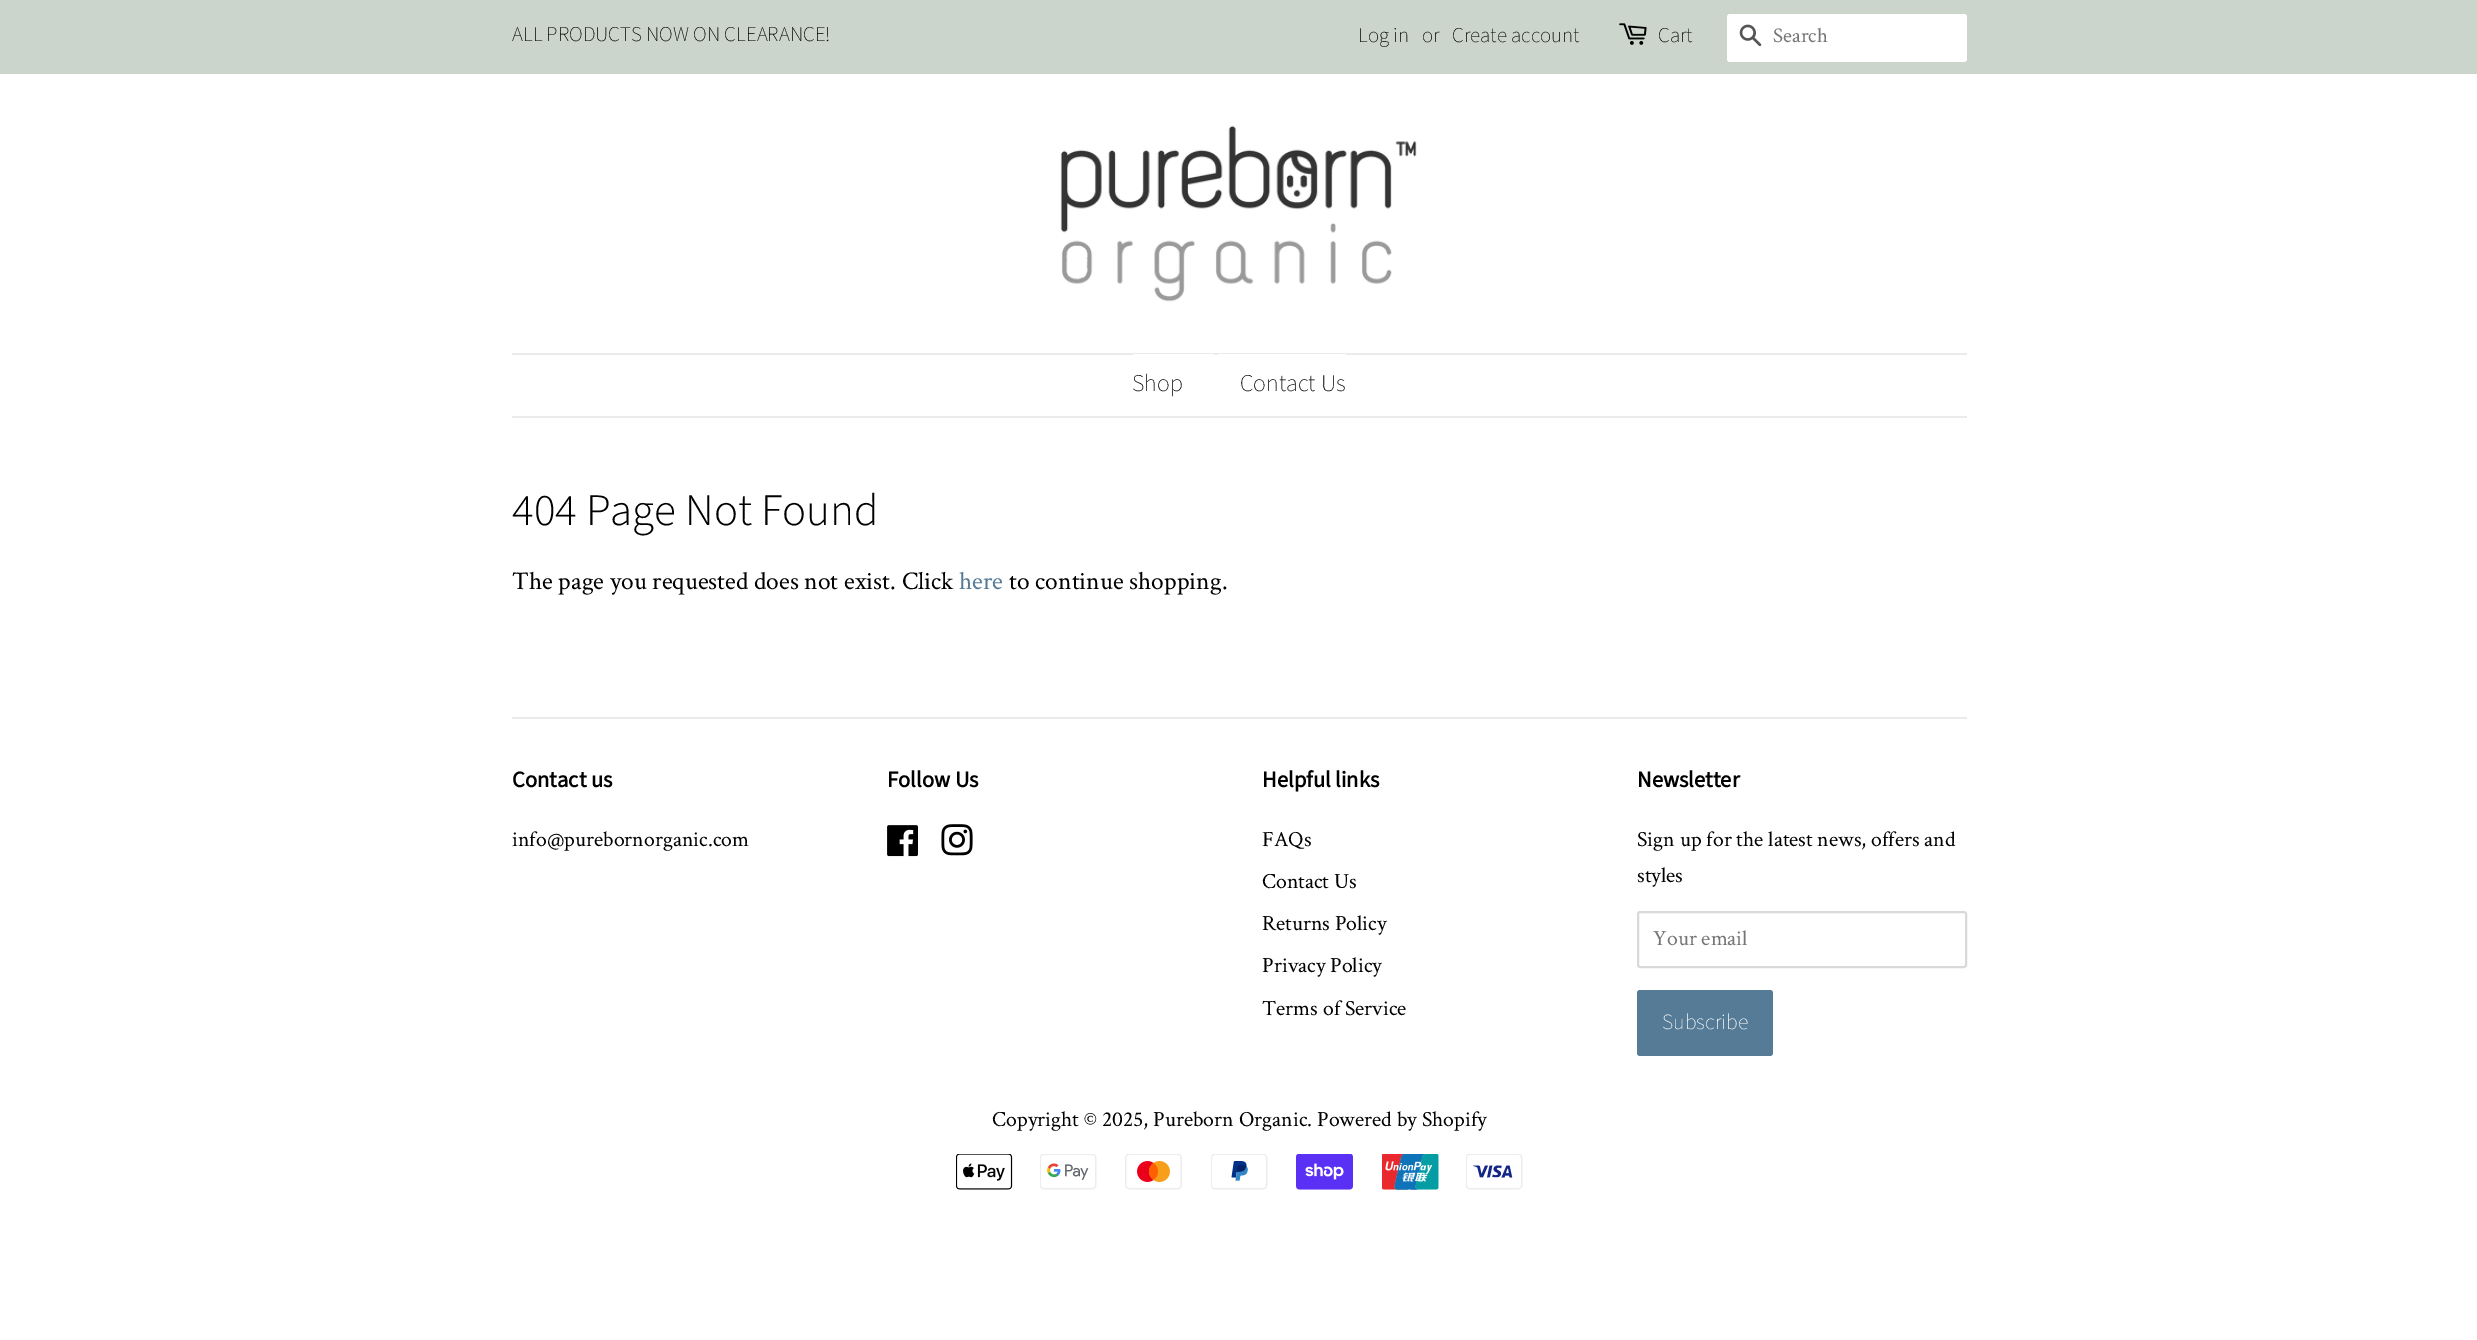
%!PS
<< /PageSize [2477 1340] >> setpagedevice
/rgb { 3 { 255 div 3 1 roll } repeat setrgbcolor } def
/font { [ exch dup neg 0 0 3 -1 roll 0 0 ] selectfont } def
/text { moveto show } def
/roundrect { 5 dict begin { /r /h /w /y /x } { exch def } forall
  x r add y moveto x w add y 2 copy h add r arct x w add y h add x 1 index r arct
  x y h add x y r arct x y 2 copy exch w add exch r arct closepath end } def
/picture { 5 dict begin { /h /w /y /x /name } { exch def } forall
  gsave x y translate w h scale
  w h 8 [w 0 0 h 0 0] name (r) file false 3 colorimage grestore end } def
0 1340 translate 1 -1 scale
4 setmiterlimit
255 255 255 rgb
0 0 2477 1340 rectfill
203 213 204 rgb
0 0 2477 74 rectfill
(img_01.rgb) 1619 23 28 22 picture
255 255 255 rgb
1727 14 240 48 3 roundrect fill
(img_02.rgb) 1739 24 23 23 picture
(img_03.rgb) 1060 125 357 177 picture
235 235 235 rgb
512 353 1455 2 rectfill
512 416 1455 2 rectfill
255 255 255 rgb
1133 354 81 1 rectfill
1218 354 128 1 rectfill
235 235 235 rgb
512 717 1455 2 rectfill
(img_04.rgb) 887 825 31 32 picture
(img_05.rgb) 941 824 32 32 picture
217 217 217 rgb
2 setlinewidth
1638 912 328 55 2 roundrect stroke
85 123 151 rgb
1637 990 136 66 3 roundrect fill
(img_06.rgb) 956 1154 57 36 picture
(img_07.rgb) 1040 1154 57 36 picture
(img_08.rgb) 1125 1154 57 36 picture
(img_09.rgb) 1211 1154 57 36 picture
(img_10.rgb) 1296 1154 57 36 picture
(img_11.rgb) 1382 1154 57 36 picture
(img_12.rgb) 1466 1154 57 36 picture
/SourceSansPro-ExtraLight 21 font
0 0 0 rgb
(ALL PRODUCTS NOW ON CLEARANCE!) 512 41 text
(Log in) 1358 42 text
(or) 1422 42 text
(Create account) 1452 42 text
(Cart) 1658 42 text
/CrimsonText-Regular 21 font
117 117 117 rgb
(Search) 1773 42 text
/SourceSansPro-ExtraLight 24 font
0 0 0 rgb
(Shop) 1132 391 text
(Contact Us) 1240 391 text
/SourceSansPro-Light 45 font
(404 Page Not Found) 512 525 text
/CrimsonText-Regular 25.5 font
(The page you requested does not exist. Click) 512 589 text
85 123 151 rgb
(here) 959 589 text
0 0 0 rgb
(to continue shopping.) 1009 589 text
/SourceSansPro-Bold 22.5 font
(Contact us) 512 787 text
/CrimsonText-Regular 21.7 font
(info@purebornorganic.com) 512 846 text
/SourceSansPro-Bold 22.5 font
(Follow Us) 887 787 text
(Helpful links) 1262 787 text
/CrimsonText-Regular 21.7 font
(FAQs) 1262 846 text
(Contact Us) 1262 888 text
(Returns Policy) 1262 930 text
(Privacy Policy) 1262 972 text
(Terms of Service) 1262 1015 text
/SourceSansPro-Bold 22.5 font
(Newsletter) 1637 787 text
/CrimsonText-Regular 21.7 font
(Sign up for the latest news, offers and) 1637 846 text
(styles) 1637 882 text
117 117 117 rgb
(Your email) 1653 945 text
/SourceSansPro-ExtraLight 21.7 font
255 255 255 rgb
(Subscribe) 1662 1029 text
/CrimsonText-Regular 21.7 font
0 0 0 rgb
(Copyright © 2025, Pureborn Organic. Powered by Shopify) 992 1126 text
showpage
